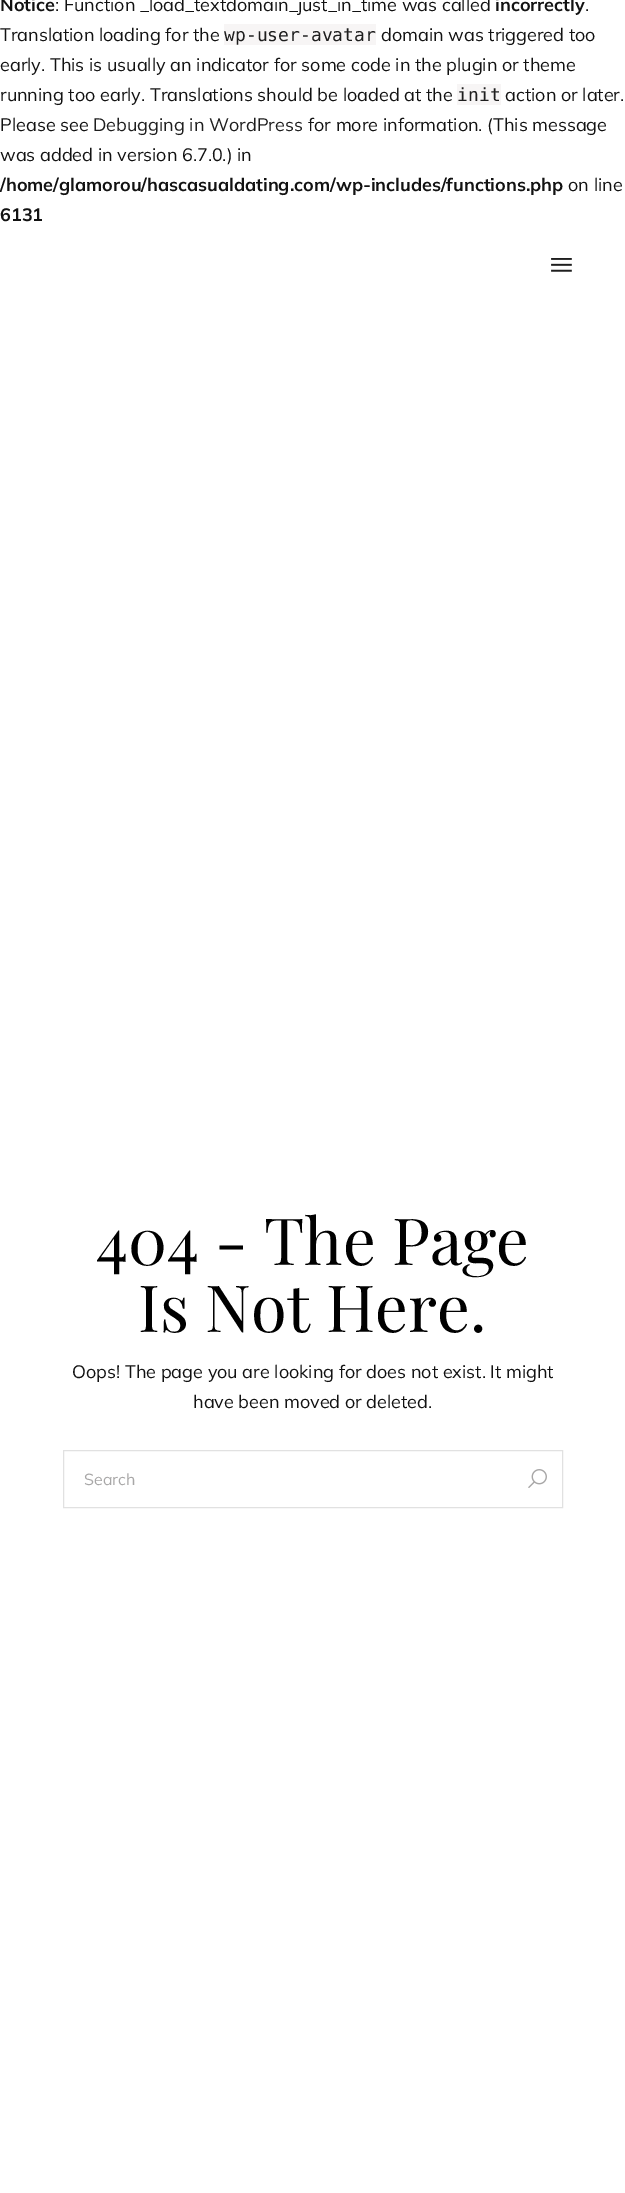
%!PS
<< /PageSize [625 2193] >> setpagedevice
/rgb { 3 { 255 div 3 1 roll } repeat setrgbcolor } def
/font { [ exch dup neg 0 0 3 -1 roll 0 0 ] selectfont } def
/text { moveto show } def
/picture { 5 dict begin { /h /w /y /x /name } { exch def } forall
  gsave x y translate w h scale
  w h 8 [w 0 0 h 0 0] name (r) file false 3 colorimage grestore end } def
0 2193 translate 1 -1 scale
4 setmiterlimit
255 255 255 rgb
0 0 625 2193 rectfill
247 245 245 rgb
224 24 152 21 rectfill
457 84 44 21 rectfill
(img_01.rgb) 551 258 21 14 picture
225 225 225 rgb
63.5 1450.5 499 57 rectstroke
(img_02.rgb) 528 1469 19 19 picture
/Mulish-Bold 18 font
18 18 18 rgb
(Notice) 0 11 text
/Mulish-Regular 18 font
(: Function _load_textdomain_just_in_time was called) 55 11 text
/Mulish-Bold 18 font
(incorrectly) 495 11 text
/Mulish-Regular 18 font
(.) 585 11 text
(Translation loading for the) 0 41 text
/DejaVuSansMono-Regular 18 font
30 30 30 rgb
(wp-user-avatar) 224 41 text
/Mulish-Regular 18 font
18 18 18 rgb
(domain was triggered too) 381 41 text
(early. This is usually an indicator for some code in the plugin or theme) 0 71 text
(running too early. Translations should be loaded at the) 0 101 text
/DejaVuSansMono-Regular 18 font
30 30 30 rgb
(init) 457 101 text
/Mulish-Regular 18 font
18 18 18 rgb
(action or later.) 505 101 text
(Please see) 0 131 text
30 30 30 rgb
(Debugging in WordPress) 93 131 text
18 18 18 rgb
(for more information. \(This message) 308 131 text
(was added in version 6.7.0.\) in) 0 161 text
/Mulish-Bold 18 font
(/home/glamorou/hascasualdating.com/wp-includes/functions.php) 0 191 text
/Mulish-Regular 18 font
(on line) 568 191 text
/Mulish-Bold 18 font
(6131) 0 221 text
/PlayfairDisplay-Regular 65 font
0 0 0 rgb
(404 - The Page) 96 1265 text
(Is Not Here.) 138 1332 text
/Mulish-Regular 18 font
18 18 18 rgb
(Oops! The page you are looking for does not exist. It might) 72 1378 text
(have been moved or deleted.) 193 1408 text
/Mulish-Regular 16 font
168 167 167 rgb
(Search) 84 1485 text
showpage
